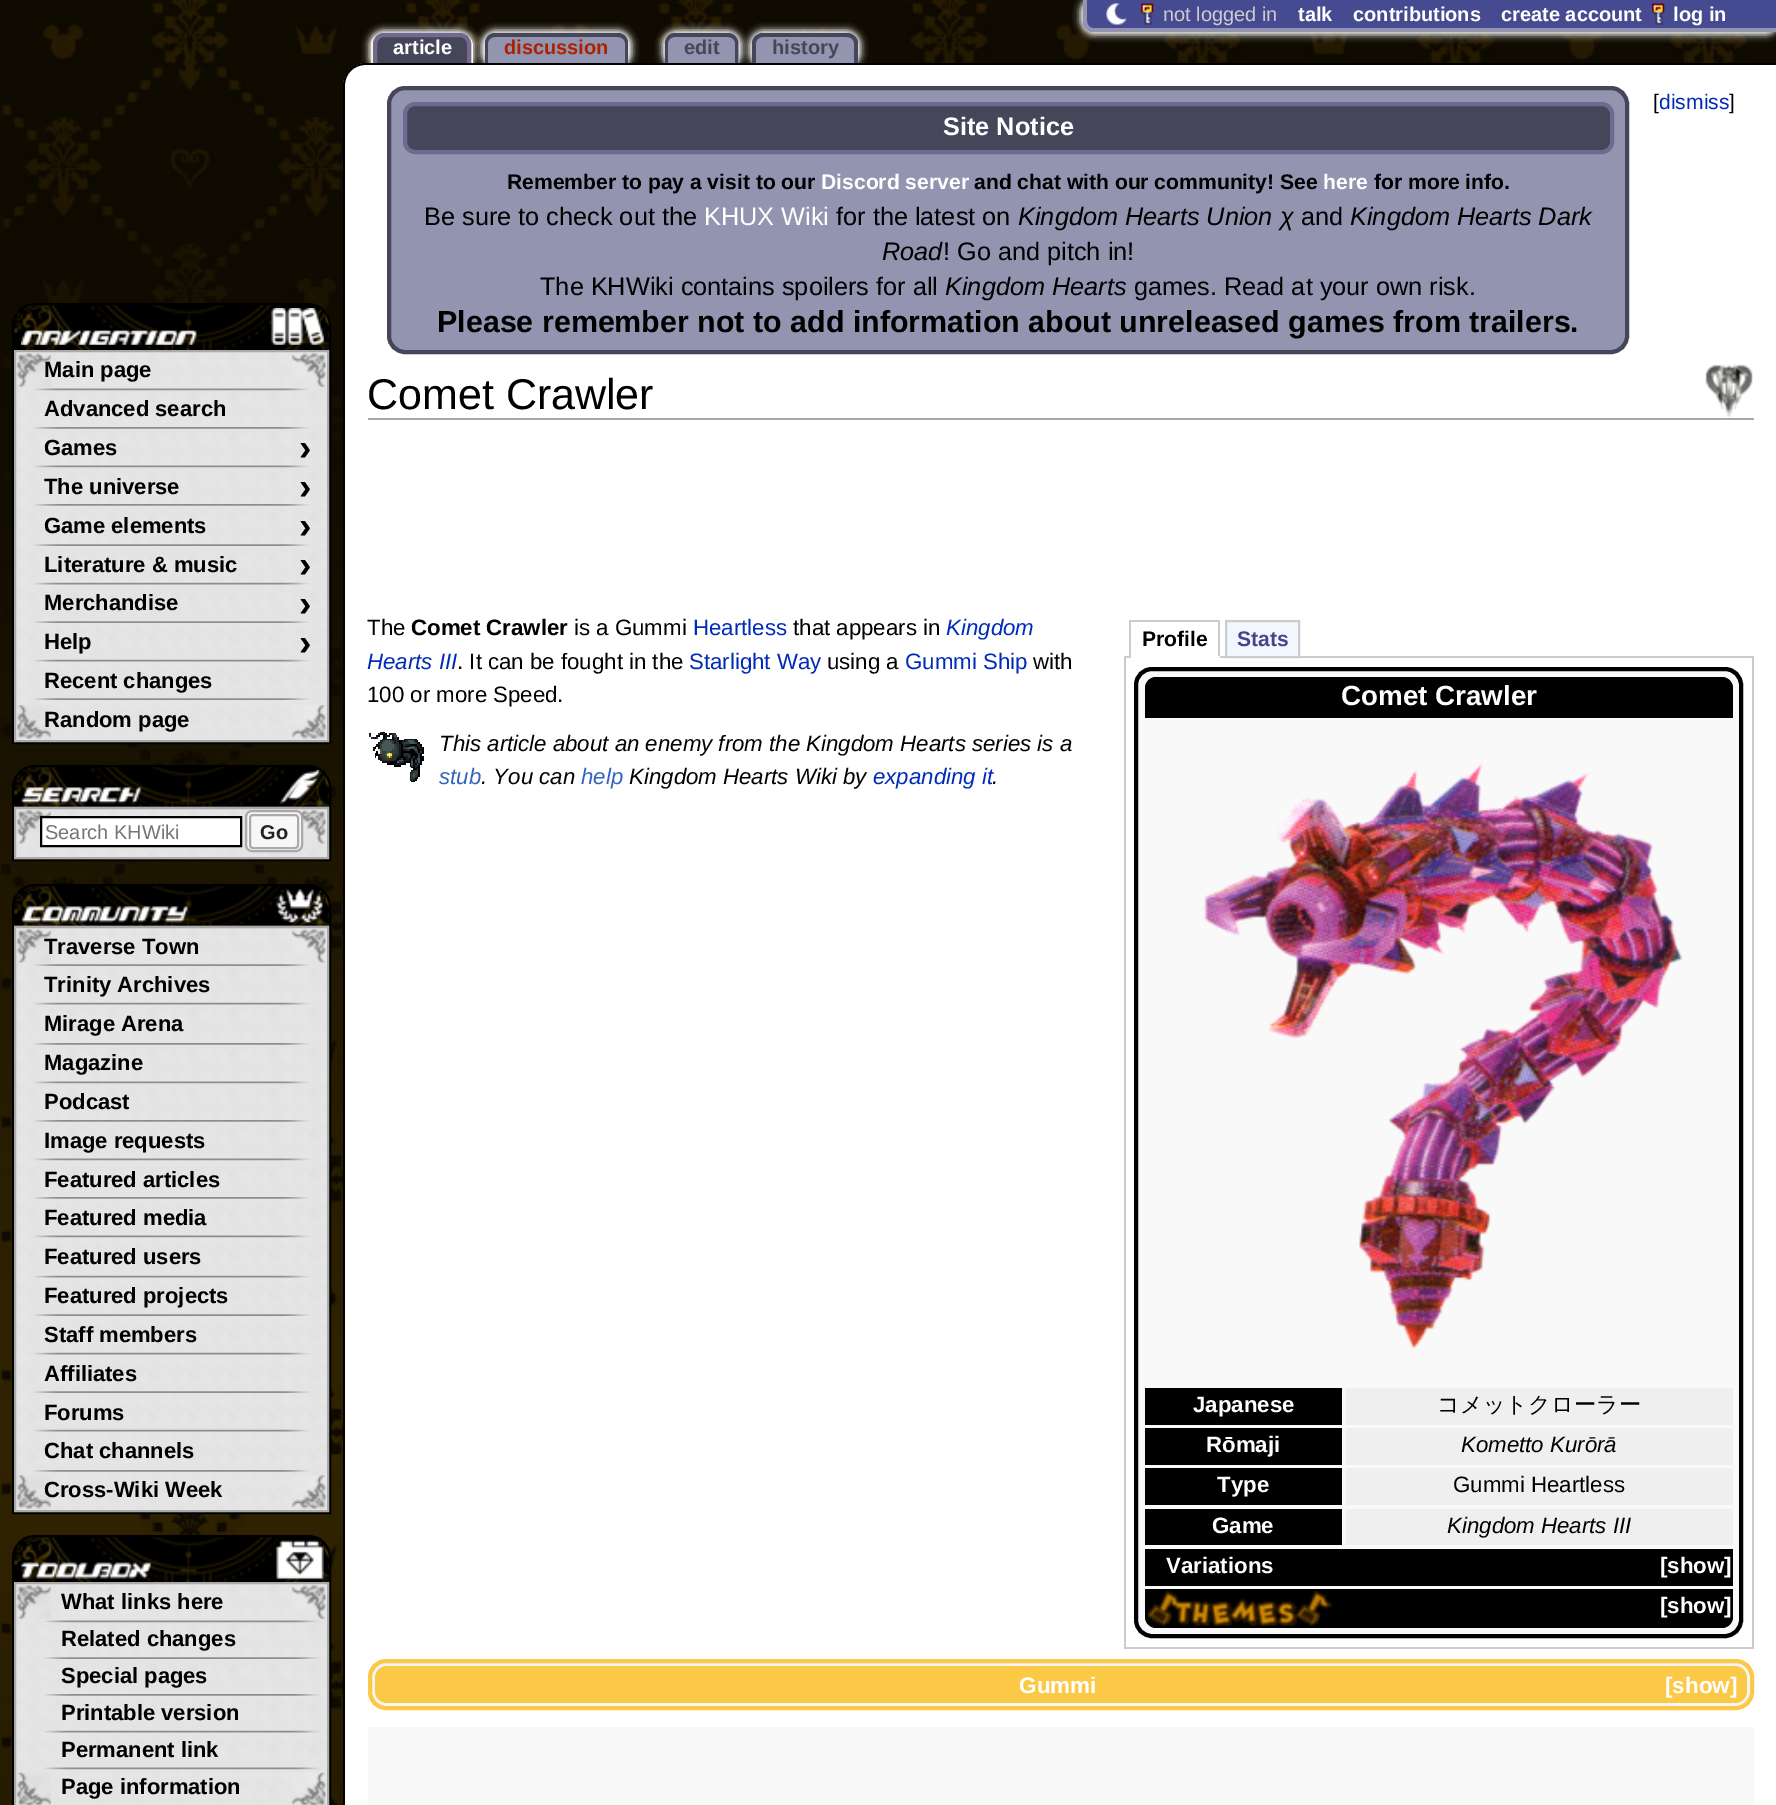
%!PS
<< /PageSize [1776 1805] /PageUsesTransparency true >> setpagedevice
/rgb { 3 { 255 div 3 1 roll } repeat setrgbcolor } def
/font { [ exch dup neg 0 0 3 -1 roll 0 0 ] selectfont } def
/text { moveto show } def
/alpha { dup .setfillconstantalpha .setstrokeconstantalpha } def
/roundrect { 5 dict begin { /r /h /w /y /x } { exch def } forall
  x r add y moveto x w add y 2 copy h add r arct x w add y h add x 1 index r arct
  x y h add x y r arct x y 2 copy exch w add exch r arct closepath end } def
/shadow { 12 dict begin { /a /b /q /h /w /y /x } { exch def } forall gsave /was 0 def
  9 -2 -9 { dup b mul 4 div /e exch def 1 sub .425 mul 2.718 exch exp 1 add a .99 .min exch div /now exch def
    1 1 now sub 1 was sub div sub alpha /was now def
    w h .min e 2 mul add 0 gt { x e sub y e sub w e 2 mul add h e 2 mul add
      q e add b .6 mul add w h .min 2 div e add .min 0 .max roundrect fill } if } for grestore end } def
/picture { 5 dict begin { /h /w /y /x /name } { exch def } forall
  gsave x y translate w h scale
  w h 8 [w 0 0 h 0 0] name (r) file false 3 colorimage grestore end } def
0 .pushpdf14devicefilter
0 1805 translate 1 -1 scale
4 setmiterlimit
255 255 255 rgb
0 0 1776 1805 rectfill
(img_01.rgb) 0 0 1776 1805 picture
1080 -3 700 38 14 3.5 1 shadow
70 74 145 rgb
1083 0 moveto 693 0 rlineto 0 32 rlineto -682 0 rlineto -6 0 -11 -5 -11 -11 rcurveto closepath fill
146 148 176 rgb
1083 0 moveto 693 0 rlineto 0 32 rlineto -683 0 rlineto -5 0 -10 -5 -10 -11 rcurveto closepath 1087 0 moveto 689 0 rlineto 0 28 rlineto -683 0 rlineto -3 0 -6 -3 -6 -7 rcurveto closepath eofill
(img_02.rgb) 1106 3 21 22 picture
(img_03.rgb) 1141 3 13 22 picture
(img_03.rgb) 1652 3 13 22 picture
255 255 255 rgb
382 35 moveto 80 0 rlineto 6 0 11 5 11 11 rcurveto 0 33 rlineto -102 0 rlineto 0 -33 rlineto 0 -6 5 -11 11 -11 rcurveto closepath fill
250 189 35 rgb
381 35 moveto 81 0 rlineto 6 0 10 4 10 10 rcurveto 0 34 rlineto -101 0 rlineto 0 -34 rlineto 0 -6 4 -10 10 -10 rcurveto closepath 381 37 moveto 81 0 rlineto 5 0 9 3 9 8 rcurveto 0 34 rlineto -98 0 rlineto 0 -34 rlineto 0 -5 3 -8 8 -8 rcurveto closepath eofill
255 255 255 rgb
369 30 105 42 14 3.5 1 shadow
69 70 89 rgb
384 35 moveto 76 0 rlineto 5 0 9 4 9 9 rcurveto 0 22 rlineto -94 0 rlineto 0 -22 rlineto 0 -5 4 -9 9 -9 rcurveto closepath gsave fill grestore
113 105 146 rgb
4 setlinewidth
stroke
40 40 40 rgb
493 35 moveto 127 0 rlineto 6 0 10 4 10 10 rcurveto 0 34 rlineto -147 0 rlineto 0 -34 rlineto 0 -6 4 -10 10 -10 rcurveto closepath 493 37 moveto 127 0 rlineto 5 0 8 3 8 8 rcurveto 0 34 rlineto -143 0 rlineto 0 -34 rlineto 0 -5 3 -8 8 -8 rcurveto closepath eofill
255 255 255 rgb
481 30 151 38 14 3.5 1 shadow
146 148 176 rgb
496 33 moveto 121 0 rlineto 6 0 11 5 11 11 rcurveto 0 21 rlineto -143 0 rlineto 0 -21 rlineto 0 -6 5 -11 11 -11 rcurveto closepath fill
69 70 89 rgb
495 33 moveto 123 0 rlineto 6 0 10 5 10 10 rcurveto 0 22 rlineto -143 0 rlineto 0 -22 rlineto 0 -5 4 -10 10 -10 rcurveto closepath 495 37 moveto 123 0 rlineto 4 0 7 3 7 6 rcurveto 0 22 rlineto -137 0 rlineto 0 -22 rlineto 0 -3 3 -6 7 -6 rcurveto closepath eofill
40 40 40 rgb
673 35 moveto 57 0 rlineto 6 0 10 4 10 10 rcurveto 0 34 rlineto -77 0 rlineto 0 -34 rlineto 0 -6 5 -10 10 -10 rcurveto closepath 673 37 moveto 57 0 rlineto 5 0 8 3 8 8 rcurveto 0 34 rlineto -73 0 rlineto 0 -34 rlineto 0 -5 4 -8 8 -8 rcurveto closepath eofill
255 255 255 rgb
662 30 80 38 14 3.5 1 shadow
146 148 176 rgb
676 33 moveto 52 0 rlineto 6 0 11 5 11 11 rcurveto 0 21 rlineto -74 0 rlineto 0 -21 rlineto 0 -6 5 -11 11 -11 rcurveto closepath fill
69 70 89 rgb
675 33 moveto 53 0 rlineto 6 0 10 5 10 10 rcurveto 0 22 rlineto -73 0 rlineto 0 -22 rlineto 0 -5 4 -10 10 -10 rcurveto closepath 675 37 moveto 53 0 rlineto 4 0 7 3 7 6 rcurveto 0 22 rlineto -67 0 rlineto 0 -22 rlineto 0 -3 3 -6 7 -6 rcurveto closepath eofill
40 40 40 rgb
761 35 moveto 88 0 rlineto 6 0 10 4 10 10 rcurveto 0 34 rlineto -108 0 rlineto 0 -34 rlineto 0 -6 4 -10 10 -10 rcurveto closepath 761 37 moveto 88 0 rlineto 5 0 9 3 9 8 rcurveto 0 34 rlineto -106 0 rlineto 0 -34 rlineto 0 -5 4 -8 9 -8 rcurveto closepath eofill
255 255 255 rgb
749 30 112 38 14 3.5 1 shadow
146 148 176 rgb
764 33 moveto 83 0 rlineto 6 0 11 5 11 11 rcurveto 0 21 rlineto -105 0 rlineto 0 -21 rlineto 0 -6 5 -11 11 -11 rcurveto closepath fill
69 70 89 rgb
763 33 moveto 84 0 rlineto 6 0 11 5 11 10 rcurveto 0 22 rlineto -106 0 rlineto 0 -22 rlineto 0 -5 5 -10 11 -10 rcurveto closepath 763 37 moveto 84 0 rlineto 4 0 7 3 7 6 rcurveto 0 22 rlineto -98 0 rlineto 0 -22 rlineto 0 -3 3 -6 7 -6 rcurveto closepath eofill
(img_04.rgb) 13 304 318 46 picture
0 0 0 rgb
2 setlinewidth
35 304 moveto 273 0 rlineto 12 0 22 10 22 22 rcurveto 0 417 rlineto -317 0 rlineto 0 -417 rlineto 0 -12 10 -22 22 -22 rcurveto closepath stroke
(img_05.rgb) 21 308 303 37 picture
229 229 229 rgb
16 352 311 388 rectfill
(img_06.rgb) 17 353 309 387 picture
170 170 170 rgb
15 351 313 390 rectstroke
(img_07.rgb) 33 388 277 3 picture
(img_08.rgb) 33 427 277 2 picture
(img_09.rgb) 33 465 277 3 picture
(img_10.rgb) 33 504 277 2 picture
(img_11.rgb) 33 544 277 2 picture
(img_12.rgb) 33 582 277 3 picture
(img_13.rgb) 33 621 277 2 picture
(img_14.rgb) 33 659 277 3 picture
(img_15.rgb) 33 698 277 2 picture
(img_16.rgb) 12 766 319 41 picture
0 0 0 rgb
35 766 moveto 273 0 rlineto 12 0 22 10 22 22 rcurveto 0 72 rlineto -317 0 rlineto 0 -72 rlineto 0 -12 10 -22 22 -22 rcurveto closepath stroke
(img_17.rgb) 21 770 300 34 picture
(img_18.rgb) 14 806 315 54 picture
170 170 170 rgb
15 808 313 50 rectstroke
255 255 255 rgb
41 817 moveto 200 0 rlineto 0 29 rlineto -200 0 rlineto closepath gsave fill grestore
0 0 0 rgb
stroke
247 247 247 rgb
246 811 56 40 6 roundrect gsave fill grestore
170 170 170 rgb
stroke
250 815 48 33 3 roundrect stroke
(img_19.rgb) 12 885 319 41 picture
0 0 0 rgb
35 885 moveto 273 0 rlineto 12 0 22 10 22 22 rcurveto 0 606 rlineto -317 0 rlineto 0 -606 rlineto 0 -12 10 -22 22 -22 rcurveto closepath stroke
(img_20.rgb) 21 889 303 34 picture
(img_21.rgb) 14 925 315 585 picture
170 170 170 rgb
15 927 313 584 rectstroke
(img_22.rgb) 33 964 277 2 picture
(img_23.rgb) 33 1002 277 3 picture
(img_08.rgb) 33 1043 277 2 picture
(img_09.rgb) 33 1081 277 3 picture
(img_10.rgb) 33 1120 277 2 picture
(img_24.rgb) 33 1158 277 3 picture
(img_25.rgb) 33 1197 277 2 picture
(img_26.rgb) 33 1235 277 3 picture
(img_14.rgb) 33 1275 277 3 picture
(img_15.rgb) 33 1314 277 2 picture
(img_27.rgb) 33 1352 277 3 picture
(img_28.rgb) 33 1391 277 2 picture
(img_29.rgb) 33 1429 277 3 picture
(img_30.rgb) 33 1470 277 2 picture
(img_31.rgb) 12 1536 319 46 picture
0 0 0 rgb
35 1536 moveto 273 0 rlineto 12 0 22 10 22 22 rcurveto 0 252 rlineto -317 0 rlineto 0 -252 rlineto 0 -12 10 -22 22 -22 rcurveto closepath stroke
(img_32.rgb) 21 1540 303 40 picture
229 229 229 rgb
16 1584 311 221 rectfill
(img_33.rgb) 17 1585 309 220 picture
170 170 170 rgb
15 1583 313 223 rectstroke
(img_34.rgb) 44 1620 276 3 picture
(img_35.rgb) 44 1657 276 2 picture
(img_36.rgb) 44 1694 276 2 picture
(img_37.rgb) 44 1730 276 3 picture
(img_38.rgb) 44 1767 276 3 picture
255 255 255 rgb
366 63 moveto 1410 0 rlineto 0 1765 rlineto -1410 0 rlineto -12.5 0 -23 -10.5 -23 -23 rcurveto 0 -1719 rlineto 0 -12.5 10.5 -23 23 -23 rcurveto closepath fill
0 0 0 rgb
365 63 moveto 1411 0 rlineto 0 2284 rlineto -1411 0 rlineto -12 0 -22 -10 -22 -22 rcurveto 0 -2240 rlineto 0 -12 10 -22 22 -22 rcurveto closepath 365 65 moveto 1411 0 rlineto 0 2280 rlineto -1411 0 rlineto -11 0 -20 -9 -20 -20 rcurveto 0 -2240 rlineto 0 -11 9 -20 20 -20 rcurveto closepath eofill
146 148 176 rgb
389 88 1238 264 16 roundrect gsave fill grestore
69 70 89 rgb
4 setlinewidth
stroke
405 104 1207 48 10 roundrect gsave fill grestore
113 105 146 rgb
stroke
162 169 177 rgb
368 418 1386 2 rectfill
(img_39.rgb) 1705 364 48 53 picture
204 204 204 rgb
1124 656 630 2 rectfill
1129 620 91 2 rectfill
1218 620 2 38 rectfill
255 255 255 rgb
1129 656 91 2 rectfill
204 204 204 rgb
1129 620 2 38 rectfill
242 247 255 rgb
1226 621 moveto 73 0 rlineto 0 36 rlineto -73 0 rlineto closepath gsave fill grestore
204 204 204 rgb
2 setlinewidth
stroke
1752 658 2 991 rectfill
1124 1647 630 2 rectfill
1124 658 2 991 rectfill
249 249 249 rgb
1136 669 605 967 16 roundrect gsave fill grestore
0 0 0 rgb
4 setlinewidth
stroke
1156 677 moveto 566 0 rlineto 6 0 11 5 11 11 rcurveto 0 30 rlineto -588 0 rlineto 0 -30 rlineto 0 -6 5 -11 11 -11 rcurveto closepath fill
(img_40.rgb) 1203 763 480 587 picture
1145 1388 197 37 rectfill
239 239 239 rgb
1346 1388 387 37 rectfill
0 0 0 rgb
1145 1428 197 37 rectfill
239 239 239 rgb
1346 1428 387 37 rectfill
0 0 0 rgb
1145 1468 197 37 rectfill
239 239 239 rgb
1346 1468 387 37 rectfill
0 0 0 rgb
1145 1509 197 36 rectfill
239 239 239 rgb
1346 1509 387 36 rectfill
0 0 0 rgb
1145 1549 588 37 rectfill
1145 1589 moveto 588 0 rlineto 0 28 rlineto 0 6 -5 11 -11 11 rcurveto -566 0 rlineto -6 0 -11 -5 -11 -11 rcurveto closepath fill
(img_41.rgb) 1148 1590 184 36 picture
(img_42.rgb) 369 732 55 50 picture
245 245 245 rgb
370 1661 1382 47 16 roundrect gsave fill grestore
251 201 69 rgb
stroke
375 1666 1372 37 12 roundrect fill
248 248 248 rgb
368 1727 1386 78 rectfill
/LiberationSans-Regular 20 font
204 204 204 rgb
(not logged in) 1163 21 text
/LiberationSans-Bold 20 font
255 255 255 rgb
(talk) 1298 21 text
(contributions) 1353 21 text
(create account) 1501 21 text
(log in) 1673 21 text
(article) 393 54 text
170 34 0 rgb
(discussion) 504 54 text
69 70 89 rgb
(edit) 684 54 text
(history) 772 54 text
/LiberationSans-Bold 22 font
0 0 0 rgb
(Main page) 44 377 text
(Advanced search) 44 416 text
(Games) 44 455 text
/LiberationSans-Bold 37 font
(›) 299 460 text
/LiberationSans-Bold 22 font
(The universe) 44 494 text
/LiberationSans-Bold 37 font
(›) 299 499 text
/LiberationSans-Bold 22 font
(Game elements) 44 533 text
/LiberationSans-Bold 37 font
(›) 299 538 text
/LiberationSans-Bold 22 font
(Literature & music) 44 572 text
/LiberationSans-Bold 37 font
(›) 299 577 text
/LiberationSans-Bold 22 font
(Merchandise) 44 610 text
/LiberationSans-Bold 37 font
(›) 299 616 text
/LiberationSans-Bold 22 font
(Help) 44 649 text
/LiberationSans-Bold 37 font
(›) 299 655 text
/LiberationSans-Bold 22 font
(Recent changes) 44 688 text
(Random page) 44 727 text
/LiberationSans-Regular 20 font
117 117 117 rgb
(Search KHWiki) 45 839 text
/LiberationSans-Bold 20 font
34 34 34 rgb
(Go) 260 839 text
/LiberationSans-Bold 22 font
0 0 0 rgb
(Traverse Town) 44 954 text
(Trinity Archives) 44 992 text
(Mirage Arena) 44 1031 text
(Magazine) 44 1070 text
(Podcast) 44 1109 text
(Image requests) 44 1148 text
(Featured articles) 44 1187 text
(Featured media) 44 1225 text
(Featured users) 44 1264 text
(Featured projects) 44 1303 text
(Staff members) 44 1342 text
(Affiliates) 44 1381 text
(Forums) 44 1420 text
(Chat channels) 44 1458 text
(Cross-Wiki Week) 44 1497 text
(What links here) 61 1609 text
(Related changes) 61 1646 text
(Special pages) 61 1683 text
(Printable version) 61 1720 text
(Permanent link) 61 1757 text
(Page information) 61 1794 text
/LiberationSans-Regular 21.1 font
([) 1653 109 text
0 43 184 rgb
(dismiss) 1659 109 text
0 0 0 rgb
(]) 1729 109 text
/LiberationSans-Bold 25.3 font
255 255 255 rgb
(Site Notice) 943 135 text
/LiberationSans-Bold 21.1 font
0 0 0 rgb
(Remember to pay a visit to our) 507 189 text
255 255 255 rgb
(Discord server) 821 189 text
0 0 0 rgb
(and chat with our community! See) 974 189 text
255 255 255 rgb
(here) 1323 189 text
0 0 0 rgb
(for more info.) 1374 189 text
/LiberationSans-Regular 25.3 font
(Be sure to check out the) 424 225 text
255 255 255 rgb
(KHUX Wiki) 704 225 text
0 0 0 rgb
(for the latest on) 836 225 text
/LiberationSans-Italic 25.3 font
(Kingdom Hearts Union χ) 1018 225 text
/LiberationSans-Regular 25.3 font
(and) 1301 225 text
/LiberationSans-Italic 25.3 font
(Kingdom Hearts Dark) 1350 225 text
(Road) 882 260 text
/LiberationSans-Regular 25.3 font
(! Go and pitch in!) 943 260 text
(The KHWiki contains spoilers for all) 540 295 text
/LiberationSans-Italic 25.3 font
(Kingdom Hearts) 945 295 text
/LiberationSans-Regular 25.3 font
(games. Read at your own risk.) 1134 295 text
/LiberationSans-Bold 30.4 font
(Please remember not to add information about unreleased games from trailers.) 437 332 text
/LiberationSans-Regular 43 font
(Comet Crawler) 367 409 text
/LiberationSans-Regular 22.25 font
(The) 367 635 text
/LiberationSans-Bold 22.25 font
(Comet Crawler) 411 635 text
/LiberationSans-Regular 22.25 font
(is a Gummi) 574 635 text
0 43 184 rgb
(Heartless) 693 635 text
0 0 0 rgb
(that appears in) 793 635 text
/LiberationSans-Italic 22.25 font
0 43 184 rgb
(Kingdom) 946 635 text
(Hearts III) 367 669 text
/LiberationSans-Regular 22.25 font
0 0 0 rgb
(. It can be fought in the) 457 669 text
0 43 184 rgb
(Starlight Way) 689 669 text
0 0 0 rgb
(using a) 827 669 text
0 43 184 rgb
(Gummi Ship) 905 669 text
0 0 0 rgb
(with) 1033 669 text
(100 or more Speed.) 367 702 text
/LiberationSans-Bold 21.1 font
(Profile) 1142 646 text
68 68 136 rgb
(Stats) 1237 646 text
/LiberationSans-Bold 27.75 font
255 255 255 rgb
(Comet Crawler) 1341 705 text
/LiberationSans-Bold 22.25 font
(Japanese) 1193 1412 text
/WenQuanYiZenHei-Medium 22.25 font
0 0 0 rgb
(コメットクローラー) 1437 1412 text
/LiberationSans-Bold 22.25 font
255 255 255 rgb
(Rōmaji) 1206 1452 text
/LiberationSans-Italic 22.25 font
0 0 0 rgb
(Kometto Kurōrā) 1461 1452 text
/LiberationSans-Bold 22.25 font
255 255 255 rgb
(Type) 1217 1492 text
/LiberationSans-Regular 22.25 font
0 0 0 rgb
(Gummi Heartless) 1453 1492 text
/LiberationSans-Bold 22.25 font
255 255 255 rgb
(Game) 1212 1533 text
/LiberationSans-Italic 22.25 font
0 0 0 rgb
(Kingdom Hearts III) 1447 1533 text
/LiberationSans-Bold 22.25 font
255 255 255 rgb
(Variations) 1166 1573 text
([show]) 1660 1573 text
([show]) 1660 1613 text
/LiberationSans-Italic 22.25 font
0 0 0 rgb
(This article about an enemy from the Kingdom Hearts series is a) 439 751 text
51 102 187 rgb
(stub) 439 784 text
0 0 0 rgb
(. You can) 481 784 text
51 102 187 rgb
(help) 581 784 text
0 0 0 rgb
(Kingdom Hearts Wiki by) 629 784 text
0 43 184 rgb
(expanding it) 873 784 text
0 0 0 rgb
(.) 992 784 text
/LiberationSans-Bold 22.5 font
255 255 255 rgb
(Gummi) 1019 1693 text
([show]) 1665 1693 text
.poppdf14devicefilter showpage
